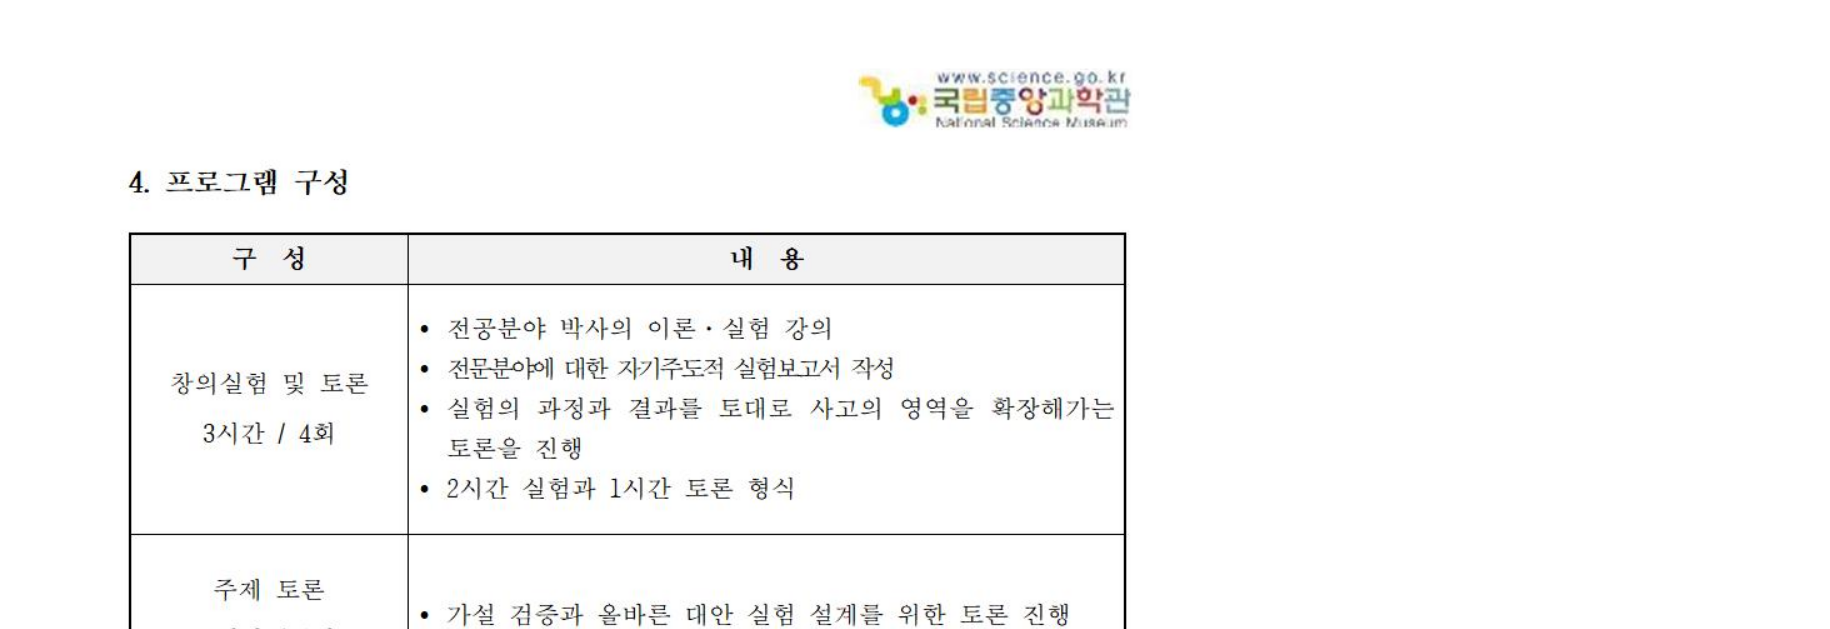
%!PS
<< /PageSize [1830 629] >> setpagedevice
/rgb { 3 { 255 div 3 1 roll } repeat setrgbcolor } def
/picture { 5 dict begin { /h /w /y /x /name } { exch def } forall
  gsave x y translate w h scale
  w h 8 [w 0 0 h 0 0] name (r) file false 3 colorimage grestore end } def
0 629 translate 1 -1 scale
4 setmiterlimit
255 255 255 rgb
0 0 1830 629 rectfill
(img_01.rgb) 120 68 1019 561 picture
showpage
